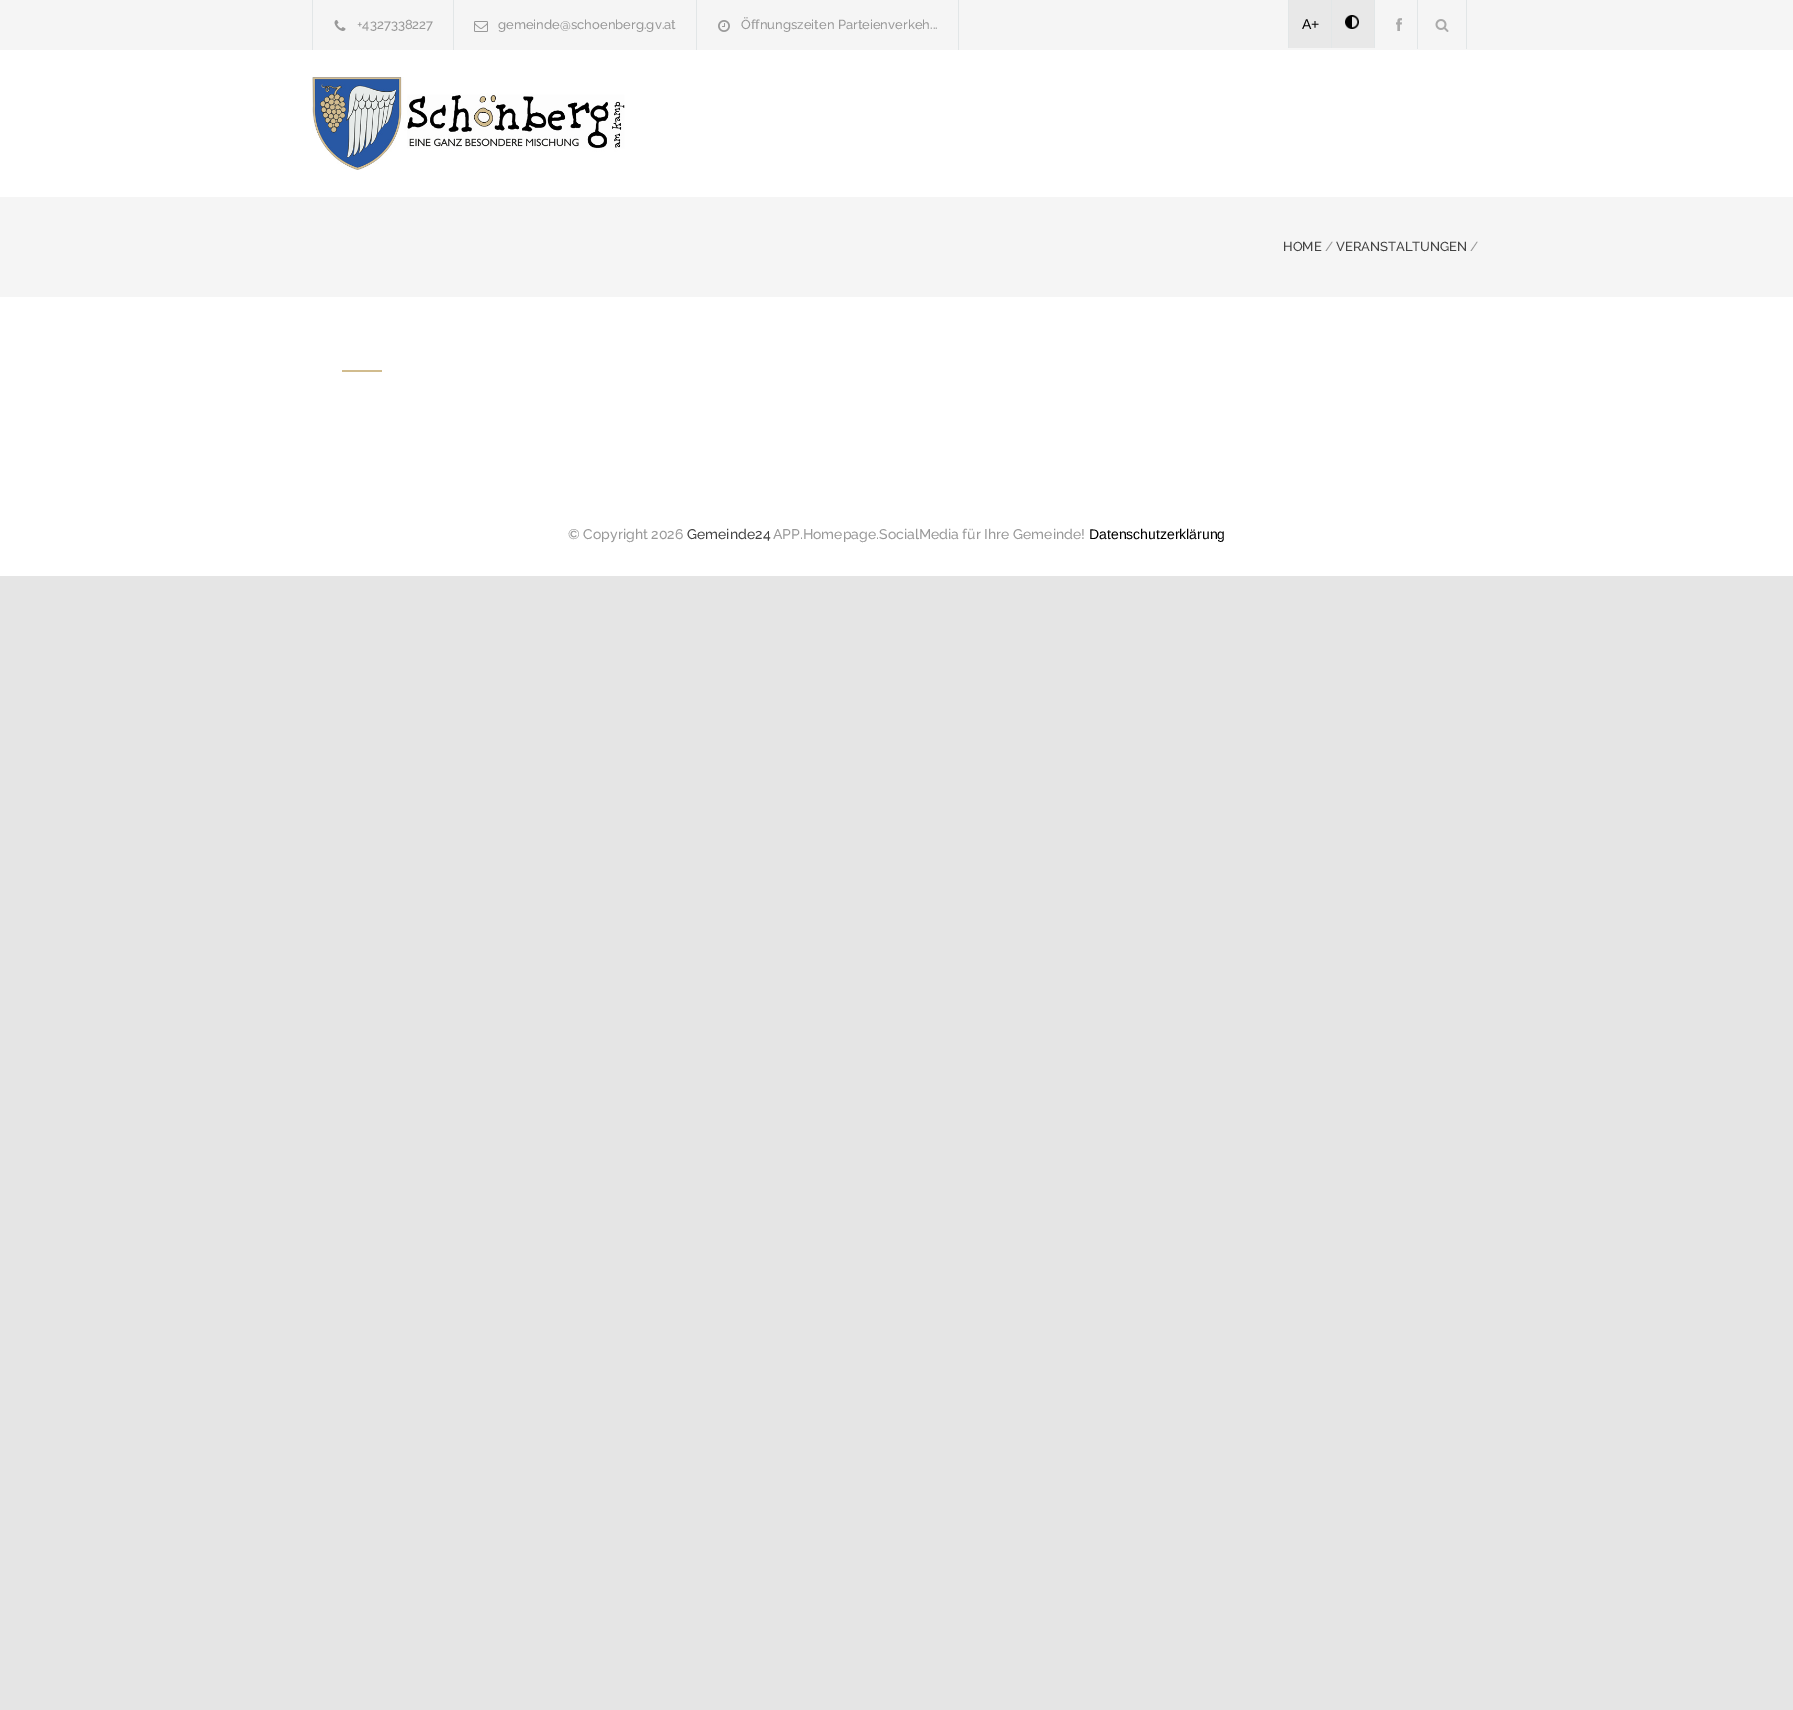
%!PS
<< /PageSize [1793 1710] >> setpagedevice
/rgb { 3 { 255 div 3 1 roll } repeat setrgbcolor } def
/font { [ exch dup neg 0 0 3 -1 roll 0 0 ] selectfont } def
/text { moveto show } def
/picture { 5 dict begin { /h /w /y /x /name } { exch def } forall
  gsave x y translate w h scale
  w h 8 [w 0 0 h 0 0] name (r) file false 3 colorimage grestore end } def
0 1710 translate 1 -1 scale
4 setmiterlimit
229 229 229 rgb
0 0 1793 1710 rectfill
255 255 255 rgb
0 50 1793 526 rectfill
245 245 245 rgb
0 0 1793 50 rectfill
226 230 231 rgb
453 0 1 50 rectfill
312 0 1 50 rectfill
(img_01.rgb) 334 20 12 11 picture
696 0 1 50 rectfill
(img_02.rgb) 474 21 14 11 picture
958 0 1 50 rectfill
(img_03.rgb) 718 20 12 12 picture
232 232 232 rgb
1289 0 42 48 rectfill
226 230 231 rgb
1331 0 1 48 rectfill
1288 0 1 48 rectfill
232 232 232 rgb
1332 0 42 48 rectfill
226 230 231 rgb
1374 0 1 48 rectfill
(img_04.rgb) 1345 15 14 14 picture
1417 0 1 49 rectfill
(img_05.rgb) 1396 18 6 13 picture
1466 0 1 49 rectfill
(img_06.rgb) 1435 19 14 13 picture
(img_07.rgb) 312 77 313 93 picture
245 245 245 rgb
0 197 1793 100 rectfill
209 188 142 rgb
342 370 40 2 rectfill
/Raleway-Medium 13 font
153 153 153 rgb
(+4327338227) 357 29 text
(gemeinde@schoenberg.gv.at) 498 29 text
(Öffnungszeiten Parteienverkeh...) 741 29 text
/LiberationSans-Regular 14 font
0 0 0 rgb
(A+) 1302 29 text
/Raleway-Medium 13 font
68 68 68 rgb
(HOME) 1283 251 text
153 153 153 rgb
(/) 1325 251 text
68 68 68 rgb
(VERANSTALTUNGEN) 1336 251 text
153 153 153 rgb
(/) 1470 251 text
/Raleway-Medium 14 font
(© Copyright 2026) 568 539 text
68 68 68 rgb
(Gemeinde24) 687 539 text
153 153 153 rgb
(APP.Homepage.SocialMedia für Ihre Gemeinde!) 773 539 text
/LiberationSans-Regular 14 font
0 0 0 rgb
(Datenschutzerklärung) 1089 539 text
showpage
